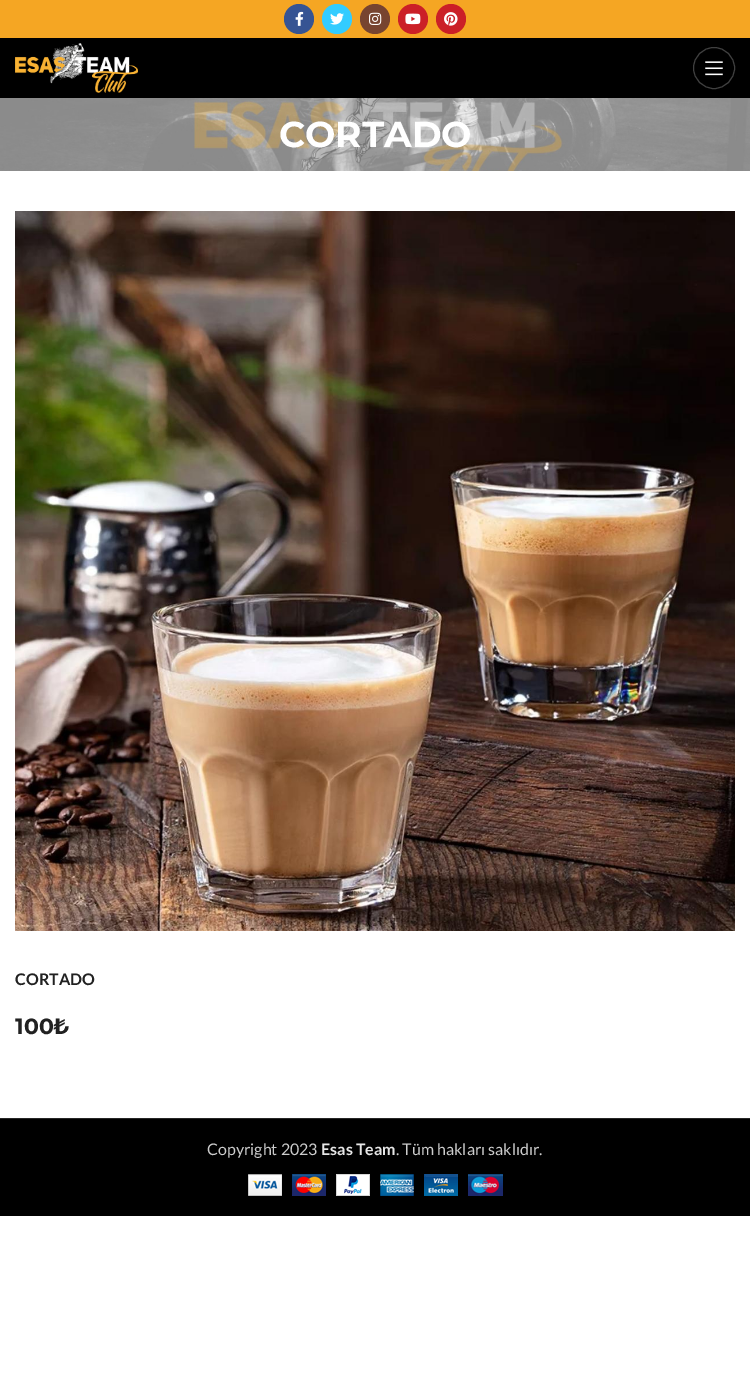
%!PS
<< /PageSize [750 1384] >> setpagedevice
/rgb { 3 { 255 div 3 1 roll } repeat setrgbcolor } def
/font { [ exch dup neg 0 0 3 -1 roll 0 0 ] selectfont } def
/text { moveto show } def
/circle { newpath 0 360 arc closepath } def
/picture { 5 dict begin { /h /w /y /x /name } { exch def } forall
  gsave x y translate w h scale
  w h 8 [w 0 0 h 0 0] name (r) file false 3 colorimage grestore end } def
0 1384 translate 1 -1 scale
4 setmiterlimit
255 255 255 rgb
0 0 750 1384 rectfill
245 166 35 rgb
0 0 750 38 rectfill
54 84 147 rgb
299 19 15 circle fill
(img_01.rgb) 295 11 9 15 picture
51 204 255 rgb
337 19 15 circle fill
(img_02.rgb) 330 13 14 12 picture
119 68 48 rgb
375 19 15 circle fill
(img_03.rgb) 369 12 13 13 picture
203 32 39 rgb
413 19 15 circle fill
(img_04.rgb) 405 13 16 12 picture
451 19 15 circle fill
(img_05.rgb) 444 12 14 14 picture
0 0 0 rgb
0 38 750 60 rectfill
(img_06.rgb) 15 43 123 50 picture
64 64 64 rgb
714 68 20.5 circle stroke
(img_07.rgb) 705 61 18 15 picture
(img_08.rgb) 0 98 750 73 picture
(img_09.rgb) 15 211 720 720 picture
0 0 0 rgb
0 1119 750 97 rectfill
38 38 38 rgb
0 1118 750 1 rectfill
(img_10.rgb) 248 1174 255 22 picture
/Montserrat-Bold 36 font
255 255 255 rgb
(CORTADO) 279 147 text
/Lato-Bold 16 font
33 33 33 rgb
(CORTADO) 15 985 text
/Montserrat-Bold 22 font
(100₺) 15 1034 text
/Lato-Regular 16 font
204 204 204 rgb
(Copyright 2023) 207 1155 text
/Lato-Bold 16 font
230 230 230 rgb
(Esas Team) 321 1155 text
/Lato-Regular 16 font
204 204 204 rgb
(. Tüm hakları saklıdır.) 396 1155 text
showpage
